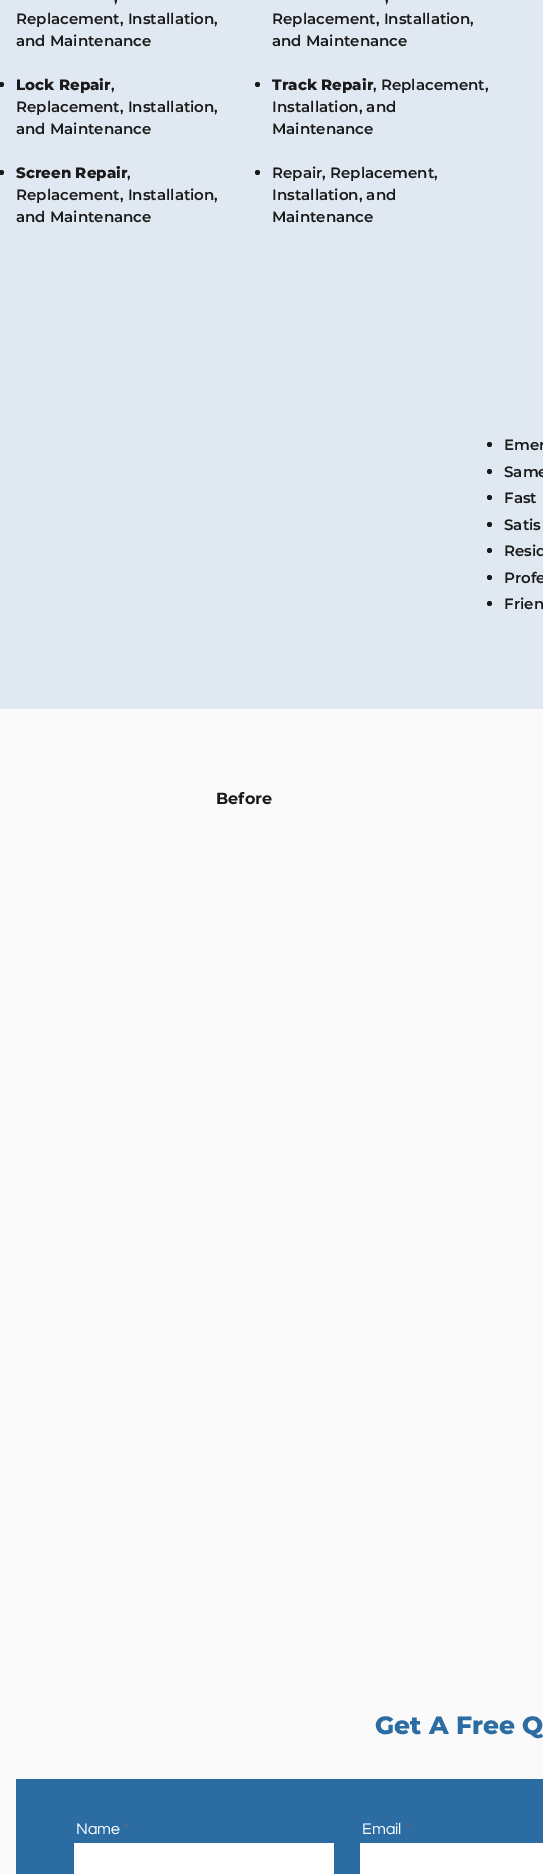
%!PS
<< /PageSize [543 1874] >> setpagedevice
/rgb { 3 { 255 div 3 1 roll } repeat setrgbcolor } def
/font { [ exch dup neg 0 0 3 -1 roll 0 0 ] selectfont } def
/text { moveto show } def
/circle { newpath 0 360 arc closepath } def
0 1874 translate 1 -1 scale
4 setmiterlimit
224 233 242 rgb
0 0 543 1874 rectfill
26 26 26 rgb
1.5 84.5 2.5 circle fill
1.5 172.5 2.5 circle fill
257.5 84.5 2.5 circle fill
257.5 172.5 2.5 circle fill
489.5 444.5 2.5 circle fill
489.5 471.5 2.5 circle fill
489.5 497.5 2.5 circle fill
489.5 524.5 2.5 circle fill
489.5 550.5 2.5 circle fill
489.5 577.5 2.5 circle fill
489.5 603.5 2.5 circle fill
250 250 250 rgb
0 709 543 1165 rectfill
43 108 163 rgb
16 1779 527 95 rectfill
255 255 255 rgb
74 1843 260 31 rectfill
360 1843 183 31 rectfill
/Montserrat-SemiBold 15 font
26 26 26 rgb
(,) 114 2 text
(Replacement, Installation,) 16 24 text
(and Maintenance) 16 46 text
/Montserrat-ExtraBold 15 font
(Lock Repair) 16 90 text
/Montserrat-SemiBold 15 font
(,) 111 90 text
(Replacement, Installation,) 16 112 text
(and Maintenance) 16 134 text
/Montserrat-ExtraBold 15 font
(Screen Repair) 16 178 text
/Montserrat-SemiBold 15 font
(,) 127 178 text
(Replacement, Installation,) 16 200 text
(and Maintenance) 16 222 text
(,) 385 2 text
(Replacement, Installation,) 272 24 text
(and Maintenance) 272 46 text
/Montserrat-ExtraBold 15 font
(Track Repair) 272 90 text
/Montserrat-SemiBold 15 font
(, Replacement,) 373 90 text
(Installation, and) 272 112 text
(Maintenance) 272 134 text
(Repair, Replacement,) 272 178 text
(Installation, and) 272 200 text
(Maintenance) 272 222 text
(Emer) 504 450 text
(Same) 504 477 text
(Fast) 504 503 text
(Satis) 504 530 text
(Resid) 504 556 text
(Profe) 504 583 text
(Frien) 504 609 text
/Montserrat-Bold 16 font
(Before) 216 804 text
/Montserrat-ExtraBold 25 font
43 108 163 rgb
(Get A Free Q) 375 1734 text
/Questrial-Regular 16 font
255 255 255 rgb
(Name) 76 1834 text
96 102 130 rgb
(*) 123 1834 text
255 255 255 rgb
(Email) 362 1834 text
96 102 130 rgb
(*) 405 1834 text
showpage
